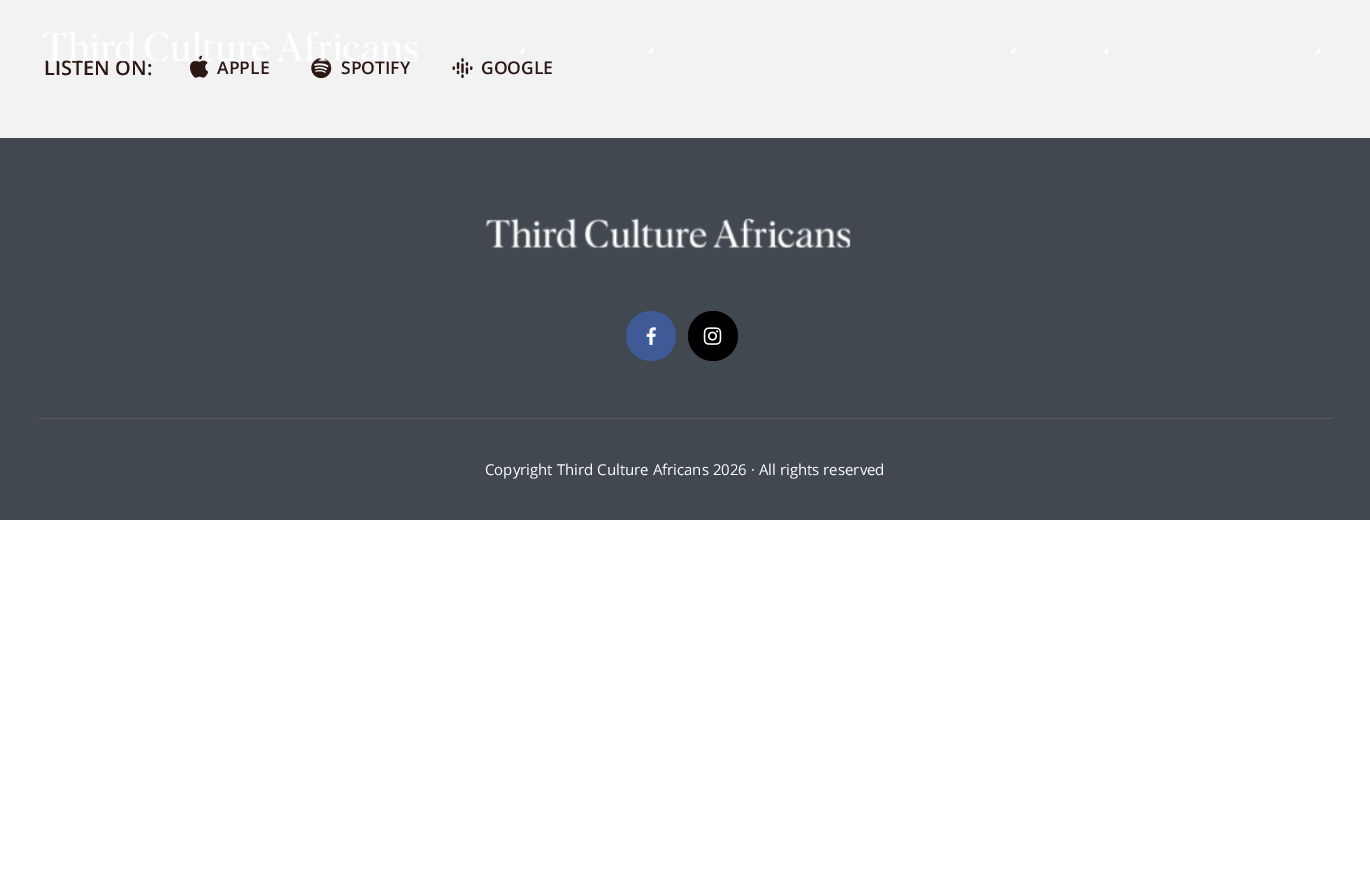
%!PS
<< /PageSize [1370 889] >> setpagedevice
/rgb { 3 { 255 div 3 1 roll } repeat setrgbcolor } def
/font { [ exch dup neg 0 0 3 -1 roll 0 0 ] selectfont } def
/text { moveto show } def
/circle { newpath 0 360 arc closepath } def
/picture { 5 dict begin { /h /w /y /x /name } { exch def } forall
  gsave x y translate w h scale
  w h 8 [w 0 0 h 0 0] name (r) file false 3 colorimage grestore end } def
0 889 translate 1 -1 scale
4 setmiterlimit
255 255 255 rgb
0 0 1370 889 rectfill
242 242 242 rgb
0 0 1370 138 rectfill
255 255 255 rgb
524.5 47 moveto 0 6.5 rlineto -6.5 0 rlineto closepath fill
653 47 moveto 0 6.5 rlineto -6 0 rlineto closepath fill
1015.5 47 moveto 0 6.5 rlineto -6 0 rlineto closepath fill
1108 47 moveto 0 6.5 rlineto -6 0 rlineto closepath fill
1320.5 47 moveto 0 6.5 rlineto -6 0 rlineto closepath fill
(img_02.rgb) 190 55 19 23 picture
(img_03.rgb) 311 58 21 21 picture
(img_04.rgb) 452 58 21 21 picture
66 72 79 rgb
0 138 1370 382 rectfill
(img_05.rgb) 485 218 366 31 picture
62 91 152 rgb
651 336 25 circle fill
(img_06.rgb) 646 327 10 18 picture
0 0 0 rgb
713 336 25 circle fill
(img_07.rgb) 703 327 19 18 picture
85 90 97 rgb
38 418 1295 1 rectfill
/OpenSans-SemiBold 20 font
43 24 19 rgb
(LISTEN ON:) 44 75 text
/OpenSans-SemiBold 17.5 font
(APPLE) 217 74 text
(SPOTIFY) 341 74 text
(img_01.rgb) 43 31 374 31 picture
(GOOGLE) 481 74 text
/OpenSans-Regular 15 font
255 255 255 rgb
(Copyright Third Culture Africans 2026 · All rights reserved) 485 475 text
showpage
